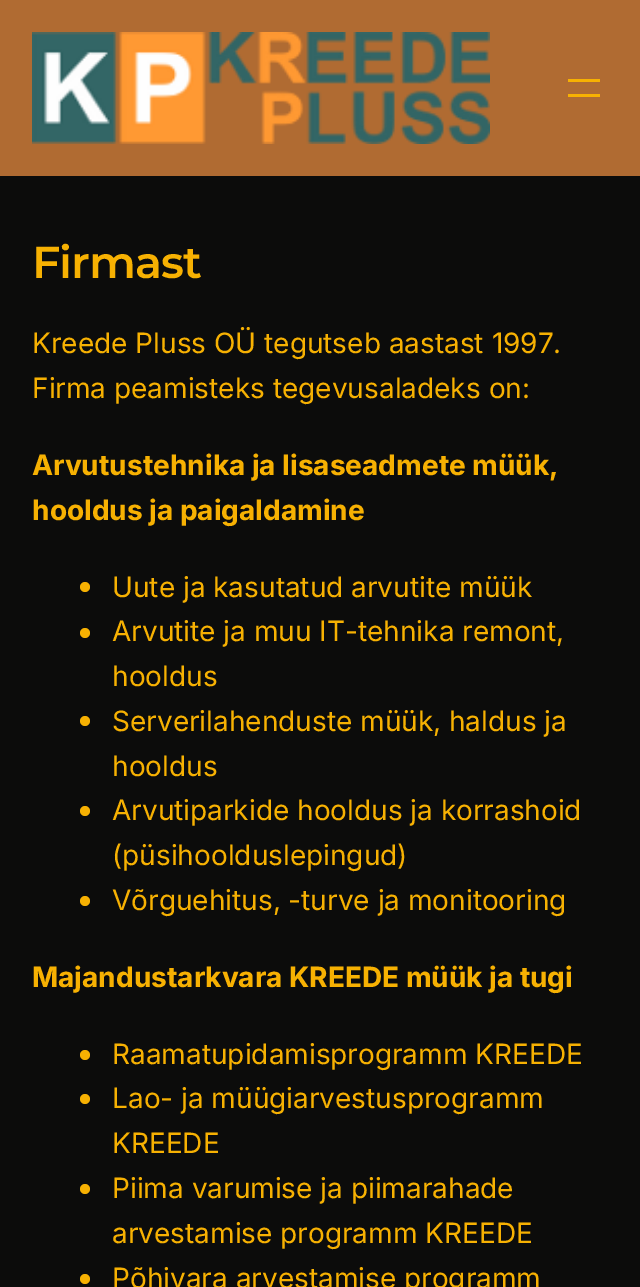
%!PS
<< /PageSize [640 1287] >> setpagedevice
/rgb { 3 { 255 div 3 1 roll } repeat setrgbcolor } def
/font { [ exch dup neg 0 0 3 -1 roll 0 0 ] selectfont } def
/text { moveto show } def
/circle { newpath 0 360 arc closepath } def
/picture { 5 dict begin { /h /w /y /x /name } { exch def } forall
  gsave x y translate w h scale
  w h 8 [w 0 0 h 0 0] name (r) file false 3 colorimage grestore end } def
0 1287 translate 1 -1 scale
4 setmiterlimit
176 107 50 rgb
0 0 640 1287 rectfill
(img_01.rgb) 32 32 458 112 picture
247 177 2 rgb
568 79 32 3 rectfill
568 94 32 3 rectfill
12 12 11 rgb
0 176 640 1111 rectfill
247 177 2 rgb
85 587 5 circle fill
85 633 5 circle fill
85 721 5 circle fill
85 811 5 circle fill
85 901 5 circle fill
85 1055 5 circle fill
85 1099 5 circle fill
85 1189 5 circle fill
85 1279 5 circle fill
/Montserrat-SemiBold 44.5 font
32 278 moveto -1 0 (Firmast) ashow
/Inter-Regular 28 font
(Kreede Pluss OÜ tegutseb aastast 1997.) 32 353 text
(Firma peamisteks tegevusaladeks on:) 32 398 text
/Inter-Bold 28 font
(Arvutustehnika ja lisaseadmete müük,) 32 475 text
(hooldus ja paigaldamine) 32 520 text
/Inter-Regular 28 font
(Uute ja kasutatud arvutite müük) 112 597 text
(Arvutite ja muu IT-tehnika remont,) 112 641 text
(hooldus) 112 686 text
(Serverilahenduste müük, haldus ja) 112 731 text
(hooldus) 112 776 text
(Arvutiparkide hooldus ja korrashoid) 112 820 text
(\(püsihoolduslepingud\)) 112 865 text
(Võrguehitus, -turve ja monitooring) 112 910 text
/Inter-Bold 28 font
(Majandustarkvara KREEDE müük ja tugi) 32 987 text
/Inter-Regular 28 font
(Raamatupidamisprogramm KREEDE) 112 1064 text
(Lao- ja müügiarvestusprogramm) 112 1108 text
(KREEDE) 112 1153 text
(Piima varumise ja piimarahade) 112 1198 text
(arvestamise programm KREEDE) 112 1243 text
(Põhivara arvestamise programm) 112 1288 text
showpage
